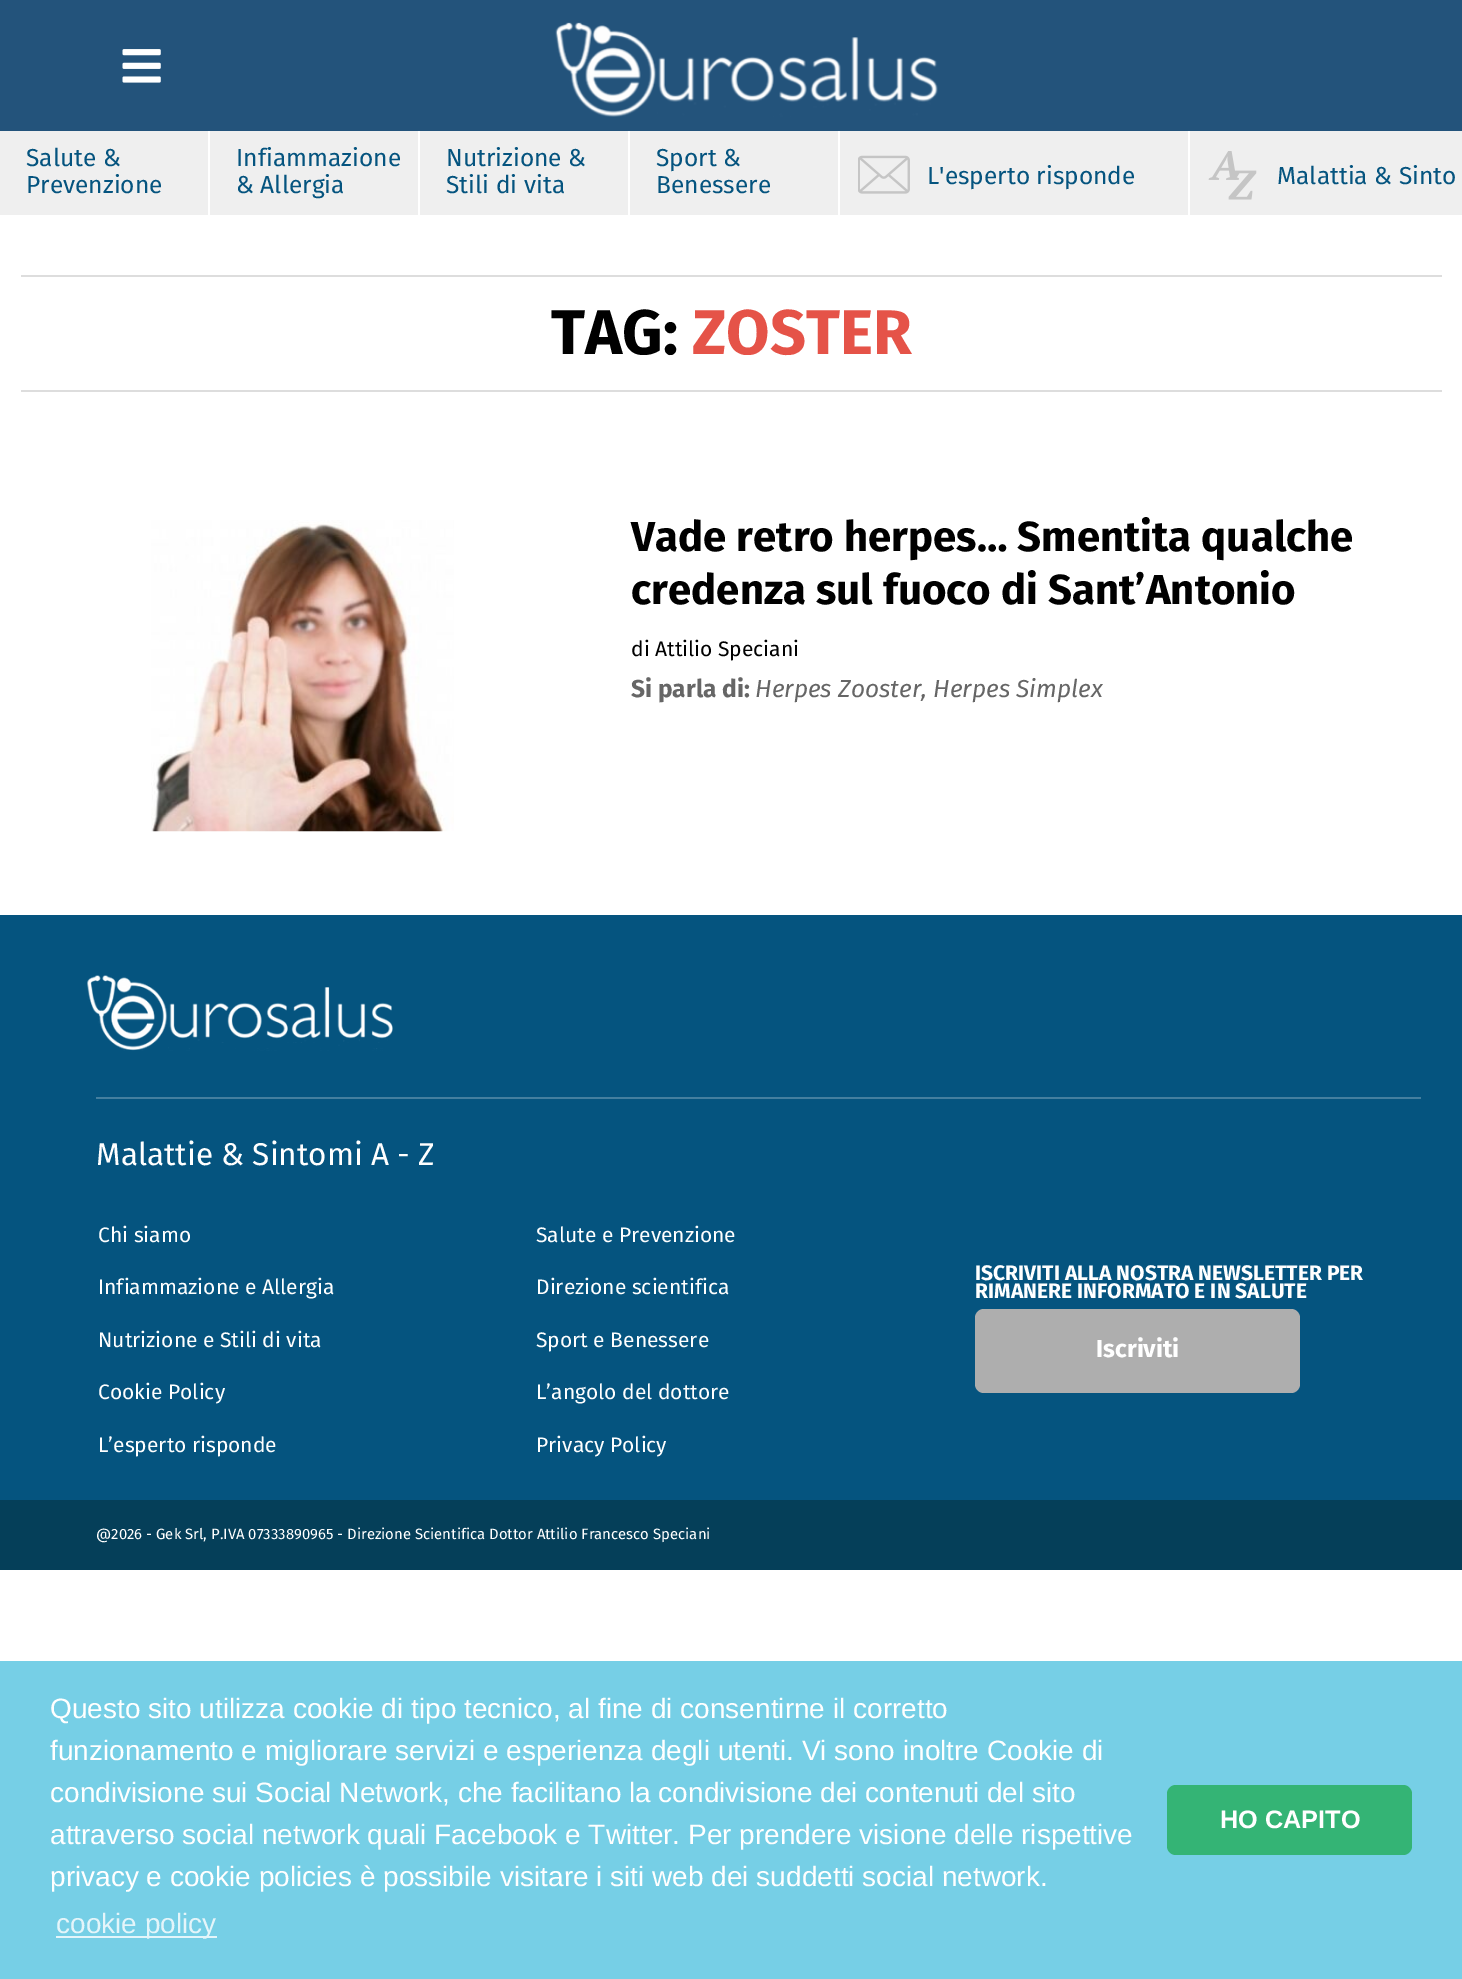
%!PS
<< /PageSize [1462 1979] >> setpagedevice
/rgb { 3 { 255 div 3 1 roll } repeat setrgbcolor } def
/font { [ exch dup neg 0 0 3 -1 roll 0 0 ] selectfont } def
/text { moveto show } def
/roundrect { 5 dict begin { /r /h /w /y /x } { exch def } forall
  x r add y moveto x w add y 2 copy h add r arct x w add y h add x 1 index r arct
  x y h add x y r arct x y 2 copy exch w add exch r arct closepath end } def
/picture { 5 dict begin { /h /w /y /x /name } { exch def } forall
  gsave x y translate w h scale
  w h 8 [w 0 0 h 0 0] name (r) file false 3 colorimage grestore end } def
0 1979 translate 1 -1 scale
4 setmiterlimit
255 255 255 rgb
0 0 1462 1979 rectfill
35 83 123 rgb
0 0 1462 131 rectfill
(img_01.rgb) 122 49 39 34 picture
(img_02.rgb) 555 22 383 95 picture
239 239 239 rgb
0 131 1462 84 rectfill
255 255 255 rgb
208 131 2 84 rectfill
418 131 2 84 rectfill
628 131 2 84 rectfill
838 131 2 84 rectfill
1188 131 2 84 rectfill
(img_03.rgb) 858 155 52 39 picture
(img_04.rgb) 1208 151 49 49 picture
221 221 221 rgb
21 275 1421 2 rectfill
21 390 1421 2 rectfill
(img_05.rgb) 151 520 303 312 picture
5 84 127 rgb
0 915 1462 585 rectfill
(img_06.rgb) 87 975 306 76 picture
68 127 159 rgb
96 1097 1325 2 rectfill
174 174 174 rgb
975 1309 325 84 9 roundrect fill
5 63 89 rgb
0 1500 1462 70 rectfill
118 207 230 rgb
0 1661 1462 318 rectfill
228 245 250 rgb
56 1936 161 2 rectfill
52 180 117 rgb
1167 1785 245 70 9 roundrect fill
/FiraSans-Regular 24.5 font
5 84 127 rgb
(Salute &) 26 166 text
(Prevenzione) 26 193 text
(Infiammazione) 236 166 text
(& Allergia) 236 193 text
(Nutrizione &) 446 166 text
(Stili di vita) 446 193 text
(Sport &) 656 166 text
(Benessere) 656 193 text
(L'esperto risponde) 927 184 text
(Malattia & Sinto) 1277 184 text
/FiraSans-Bold 63 font
0 0 0 rgb
(TAG:) 551 354 text
229 83 72 rgb
(ZOSTER) 692 354 text
/FiraSans-Bold 42 font
0 0 0 rgb
(Vade retro herpes… Smentita qualche) 631 551 text
(credenza sul fuoco di Sant’Antonio) 631 604 text
/FiraSans-Regular 21 font
(di Attilio Speciani) 631 656 text
/FiraSans-Bold 24.5 font
102 102 102 rgb
(Si parla di:) 631 697 text
/FiraSans-Italic 24.5 font
(Herpes Zooster, Herpes Simplex) 755 697 text
/FiraSans-Regular 31.5 font
255 255 255 rgb
(Malattie & Sintomi A - Z) 96 1165 text
/FiraSans-Regular 21 font
(Chi siamo) 98 1242 text
(Salute e Prevenzione) 536 1242 text
(Infiammazione e Allergia) 98 1294 text
(Direzione scientifica) 536 1294 text
(Nutrizione e Stili di vita) 98 1347 text
(Sport e Benessere) 536 1347 text
(Cookie Policy) 98 1399 text
(L’angolo del dottore) 536 1399 text
(L’esperto risponde) 98 1452 text
(Privacy Policy) 536 1452 text
/FiraSans-Bold 21 font
(ISCRIVITI ALLA NOSTRA NEWSLETTER PER) 975 1280 text
(RIMANERE INFORMATO E IN SALUTE) 975 1298 text
/FiraSans-Bold 24.5 font
(Iscriviti) 1096 1357 text
/FiraSans-Regular 14.9 font
(@2026 - Gek Srl, P.IVA 07333890965 - Direzione Scientifica Dottor Attilio Francesco Speciani) 96 1539 text
/LiberationSans-Regular 28 font
(Questo sito utilizza cookie di tipo tecnico, al fine di consentirne il corretto) 50 1718 text
(funzionamento e migliorare servizi e esperienza degli utenti. Vi sono inoltre Cookie di) 50 1760 text
(condivisione sui Social Network, che facilitano la condivisione dei contenuti del sito) 50 1802 text
(attraverso social network quali Facebook e Twitter. Per prendere visione delle rispettive) 50 1844 text
(privacy e cookie policies è possibile visitare i siti web dei suddetti social network.) 50 1886 text
228 245 250 rgb
(cookie policy) 56 1933 text
/LiberationSans-Bold 25.25 font
255 255 255 rgb
(HO CAPITO) 1220 1828 text
showpage
